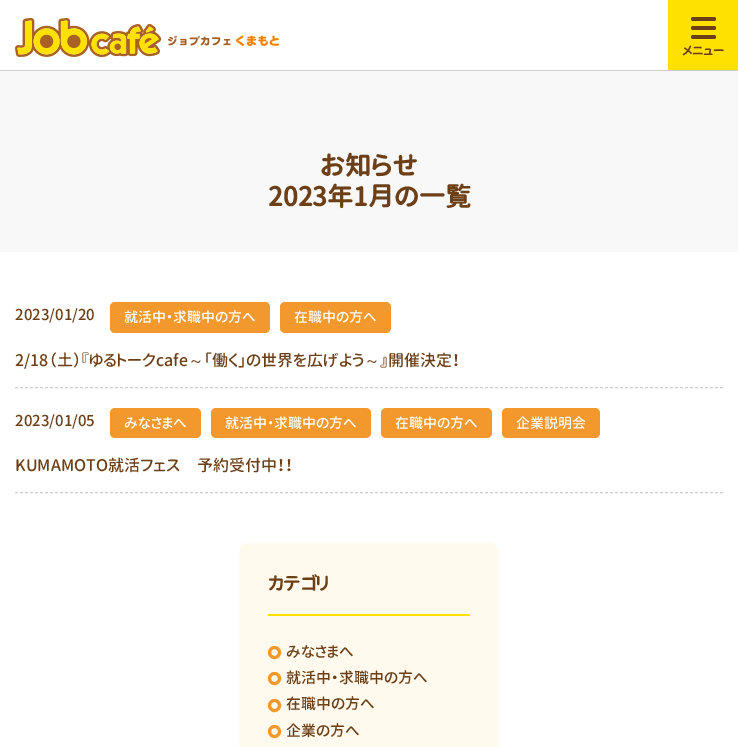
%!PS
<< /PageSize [738 747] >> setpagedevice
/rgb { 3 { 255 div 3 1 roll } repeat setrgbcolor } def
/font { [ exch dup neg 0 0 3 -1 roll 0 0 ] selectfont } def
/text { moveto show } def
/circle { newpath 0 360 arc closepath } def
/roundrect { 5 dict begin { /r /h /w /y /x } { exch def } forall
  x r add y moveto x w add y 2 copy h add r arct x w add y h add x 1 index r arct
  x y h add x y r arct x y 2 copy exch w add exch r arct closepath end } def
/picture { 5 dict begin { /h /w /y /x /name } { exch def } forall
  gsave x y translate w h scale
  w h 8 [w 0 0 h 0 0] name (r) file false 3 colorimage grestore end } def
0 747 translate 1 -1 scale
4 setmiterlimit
255 255 255 rgb
0 0 738 747 rectfill
204 204 204 rgb
0 70 738 1 rectfill
(img_01.rgb) 15 18 264 39 picture
255 225 0 rgb
668 0 70 70 rectfill
108 63 22 rgb
691 26 25 4 2 roundrect fill
691 17 25 4 2 roundrect fill
691 35 25 4 2 roundrect fill
248 248 248 rgb
0 71 738 181 rectfill
204 204 204 rgb
[3 2] 0 setdash
15 387.5 moveto 708 0 rlineto stroke
243 152 44 rgb
110 302 160 31 5 roundrect fill
280 302 111 31 5 roundrect fill
204 204 204 rgb
15 492.5 moveto 708 0 rlineto stroke
243 152 44 rgb
110 408 91 30 5 roundrect fill
211 408 160 30 5 roundrect fill
381 408 111 30 5 roundrect fill
502 408 98 30 5 roundrect fill
255 250 237 rgb
239 543 260 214 10 roundrect fill
255 225 0 rgb
268 614 202 2 rectfill
243 152 44 rgb
3 setlinewidth
[] 0 setdash
274.5 652.5 5 circle stroke
274.5 678.5 5 circle stroke
274.5 705.5 5 circle stroke
274.5 731.5 5 circle stroke
/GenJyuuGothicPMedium-Bold 12 font
108 63 22 rgb
(メニュー) 682 55 text
/GenJyuuGothicPMedium-Bold 26 font
(お知らせ) 320 175 text
(2023年1月の一覧) 268 206 text
/GenJyuuGothicPMedium-Medium 15 font
(2023/01/20) 15 320 text
/GenJyuuGothicPMedium-Medium 14 font
255 255 255 rgb
(就活中・求職中の方へ) 124 322 text
(在職中の方へ) 294 322 text
/GenJyuuGothicPMedium-Medium 16 font
108 63 22 rgb
(2/18（土）『ゆるトークcafe) 15 366 text
/WenQuanYiZenHei-Medium 16 font
(～) 188 366 text
/GenJyuuGothicPMedium-Medium 16 font
(「働く」の世界を広げよう) 204 366 text
/WenQuanYiZenHei-Medium 16 font
(～) 364 366 text
/GenJyuuGothicPMedium-Medium 16 font
(』開催決定！) 380 366 text
/GenJyuuGothicPMedium-Medium 15 font
(2023/01/05) 15 426 text
/GenJyuuGothicPMedium-Medium 14 font
255 255 255 rgb
(みなさまへ) 124 428 text
(就活中・求職中の方へ) 225 428 text
(在職中の方へ) 395 428 text
(企業説明会) 516 428 text
/GenJyuuGothicPMedium-Medium 16 font
108 63 22 rgb
(KUMAMOTO就活フェス) 15 471 text
(予約受付中！！) 197 471 text
/GenJyuuGothicPMedium-Bold 18 font
(カテゴリ) 268 590 text
/GenJyuuGothicPMedium-Medium 15 font
(みなさまへ) 286 657 text
(就活中・求職中の方へ) 286 683 text
(在職中の方へ) 286 709 text
(企業の方へ) 286 736 text
showpage
